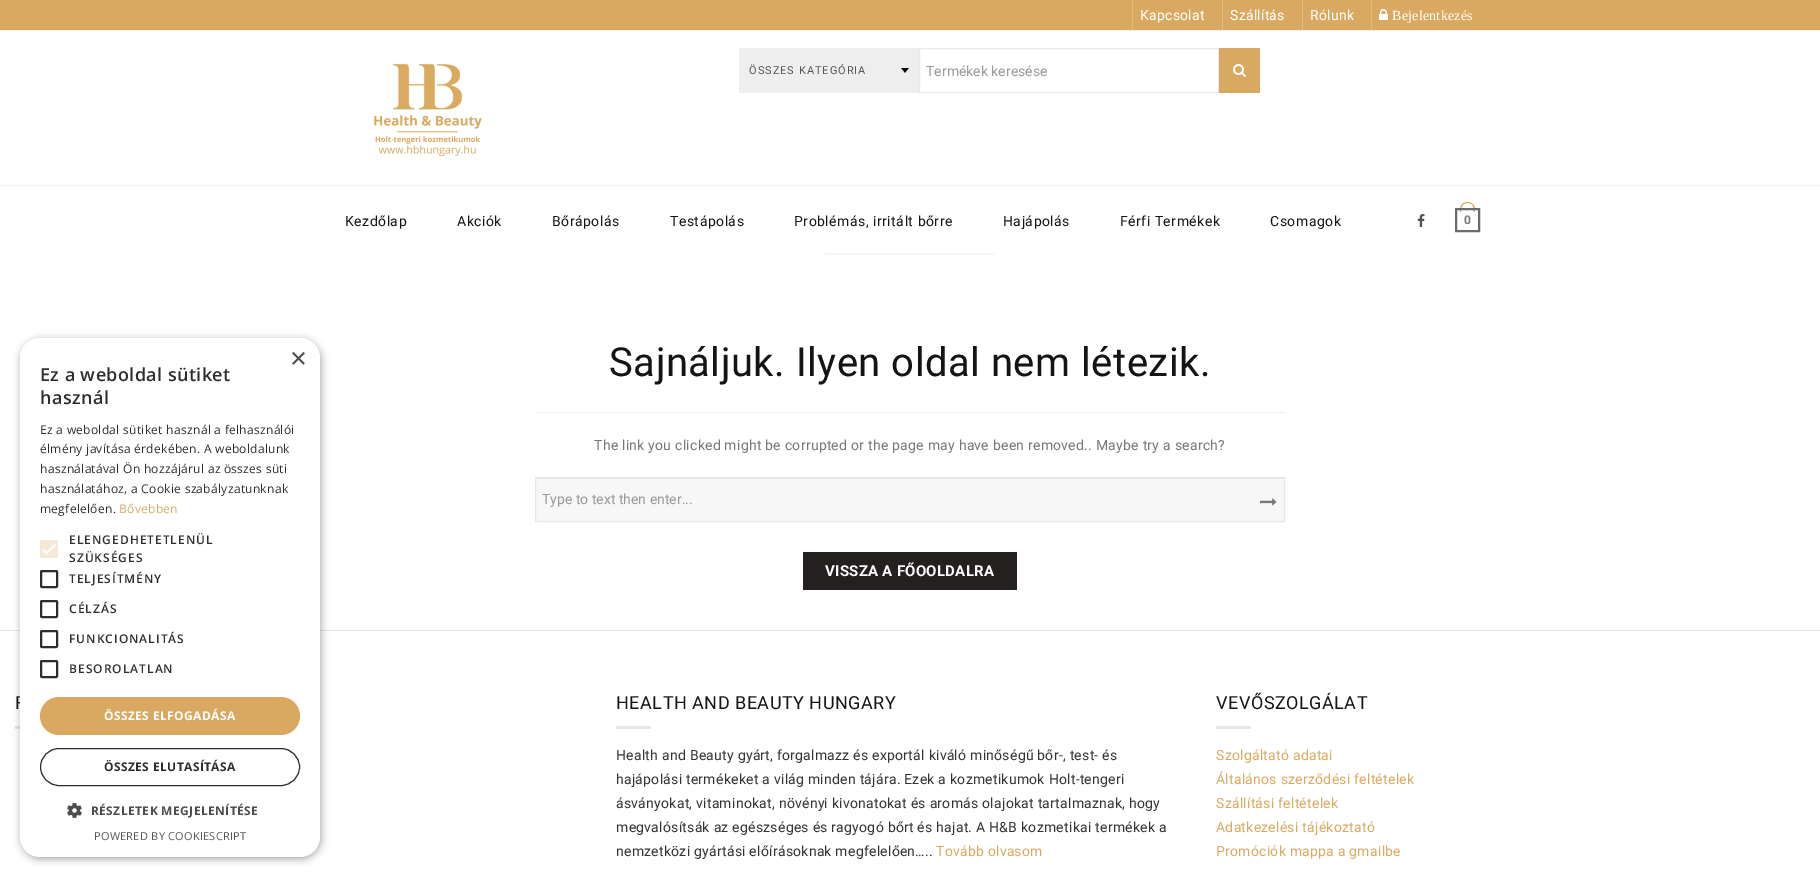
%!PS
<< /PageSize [1820 877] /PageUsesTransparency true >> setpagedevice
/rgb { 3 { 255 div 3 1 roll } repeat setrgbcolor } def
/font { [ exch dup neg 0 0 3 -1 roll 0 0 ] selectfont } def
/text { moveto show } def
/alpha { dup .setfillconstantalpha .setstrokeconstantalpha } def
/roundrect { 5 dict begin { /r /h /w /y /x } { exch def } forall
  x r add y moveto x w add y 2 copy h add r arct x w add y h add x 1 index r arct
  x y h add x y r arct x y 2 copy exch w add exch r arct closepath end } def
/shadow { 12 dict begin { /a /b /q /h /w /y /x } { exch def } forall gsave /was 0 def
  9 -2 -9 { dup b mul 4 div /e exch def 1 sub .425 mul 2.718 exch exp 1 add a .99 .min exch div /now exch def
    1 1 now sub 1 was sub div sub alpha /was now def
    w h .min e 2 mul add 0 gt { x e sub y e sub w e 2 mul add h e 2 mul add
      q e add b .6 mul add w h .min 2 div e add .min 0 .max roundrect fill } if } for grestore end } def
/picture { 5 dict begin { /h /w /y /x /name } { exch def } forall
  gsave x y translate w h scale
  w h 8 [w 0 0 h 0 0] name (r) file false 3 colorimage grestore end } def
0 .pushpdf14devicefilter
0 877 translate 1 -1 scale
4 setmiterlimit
255 255 255 rgb
0 0 1820 877 rectfill
245 245 245 rgb
824 215 172 40 4 roundrect fill
255 255 255 rgb
824 215 172 38 rectfill
217 169 97 rgb
0 0 1820 30 rectfill
237 244 246 rgb
0 30 1820 1 rectfill
225 186 129 rgb
1132 0 1 30 rectfill
1222 0 1 30 rectfill
1302 0 1 30 rectfill
1371 0 1 30 rectfill
(img_01.rgb) 1379 9 9 11 picture
237 244 246 rgb
0 185 1820 1 rectfill
(img_02.rgb) 374 63 108 94 picture
238 238 238 rgb
739 48 180 45 rectfill
(img_03.rgb) 901 68 8 5 picture
234 234 234 rgb
919.5 48.5 299 44 rectstroke
217 169 97 rgb
1219 48 41 45 rectfill
(img_04.rgb) 1233 64 13 13 picture
(img_05.rgb) 1417 214 8 13 picture
1467.5 202 moveto 4 0 7.5 3.5 7.5 7.5 rcurveto 0 2.5 rlineto -15 0 rlineto 0 -2.5 rlineto 0 -4 3.5 -7.5 7.5 -7.5 rcurveto closepath 1467.5 203 moveto 5.5 0 6.5 4.5 6.5 9 rcurveto -13 0 rlineto 0 -4.5 1 -9 6.5 -9 rcurveto closepath eofill
107 107 107 rgb
2 setlinewidth
1456 209 23 22 rectstroke
238 238 238 rgb
535 412 750 1 rectfill
247 247 247 rgb
536 479 748 42 rectfill
228 228 228 rgb
536 478 748 1 rectfill
231 231 231 rgb
1 setlinewidth
535.5 477.5 749 44 rectstroke
(img_06.rgb) 1260 498 17 8 picture
36 32 31 rgb
803 552 214 38 rectfill
230 230 230 rgb
0 630 1820 1 rectfill
15 726 5 3 rectfill
616 726 35 3 rectfill
1216 726 35 3 rectfill
0 0 0 rgb
21 340 300 519 20 4 0.35 shadow
/Roboto-Regular 14 font
255 255 255 rgb
1140 20 moveto 0.25 0 (Kapcsolat) ashow
1230 20 moveto 0.25 0 (Szállítás) ashow
1310 20 moveto 0.25 0 (Rólunk) ashow
/LiberationSerif-Regular 14 font
1392 20 moveto 0.25 0 (Bejelentkezés) ashow
/Roboto-Regular 11 font
85 85 85 rgb
749 74 moveto 1 0 (ÖSSZES KATEGÓRIA) ashow
/Roboto-Regular 14 font
153 153 153 rgb
(Termékek keresése) 926 76 text
20 20 20 rgb
345 226 moveto 0.5 0 (Kezdőlap) ashow
457 226 moveto 0.5 0 (Akciók) ashow
552 226 moveto 0.5 0 (Bőrápolás) ashow
670 226 moveto 0.5 0 (Testápolás) ashow
794 226 moveto 0.5 0 (Problémás, irritált bőrre) ashow
1003 226 moveto 0.5 0 (Hajápolás) ashow
1120 226 moveto 0.5 0 (Férfi Termékek) ashow
1270 226 moveto 0.5 0 (Csomagok) ashow
/Roboto-Bold 12 font
119 119 119 rgb
1464 224 moveto 0.25 0 (0) ashow
/Roboto-Regular 40 font
20 20 20 rgb
609 376 moveto 0.5 0 (Sajnáljuk. Ilyen oldal nem létezik.) ashow
/Roboto-Regular 14 font
119 119 119 rgb
594 450 moveto 0.25 0 (The link you clicked might be corrupted or the page may have been removed.. Maybe try a search?) ashow
153 153 153 rgb
(Type to text then enter...) 542 504 text
/Roboto-Bold 15 font
255 255 255 rgb
825 576 moveto 0.25 0 (VISSZA A FŐOOLDALRA) ashow
/Roboto-Regular 18 font
20 20 20 rgb
15 709 moveto 0.5 0 (F) ashow
616 709 moveto 0.5 0 (HEALTH AND BEAUTY HUNGARY) ashow
/Roboto-Regular 14 font
51 51 51 rgb
616 760 moveto 0.25 0 (Health and Beauty gyárt, forgalmazz és exportál kiváló minőségű bőr-, test- és) ashow
616 784 moveto 0.25 0 (hajápolási termékeket a világ minden tájára. Ezek a kozmetikumok Holt-tengeri) ashow
616 808 moveto 0.25 0 (ásványokat, vitaminokat, növényi kivonatokat és aromás olajokat tartalmaznak, hogy) ashow
616 832 moveto 0.25 0 (megvalósítsák az egészséges és ragyogó bőrt és hajat. A H&B kozmetikai termékek a) ashow
616 856 moveto 0.25 0 (nemzetközi gyártási előírásoknak megfelelően…..) ashow
217 169 97 rgb
936 856 moveto 0.25 0 (Tovább olvasom) ashow
/Roboto-Regular 18 font
20 20 20 rgb
1216 709 moveto 0.5 0 (VEVŐSZOLGÁLAT) ashow
/Roboto-Regular 14 font
217 169 97 rgb
1216 760 moveto 0.25 0 (Szolgáltató adatai) ashow
1216 784 moveto 0.25 0 (Általános szerződési feltételek) ashow
1216 808 moveto 0.25 0 (Szállítási feltételek) ashow
1216 832 moveto 0.25 0 (Adatkezelési tájékoztató) ashow
1216 856 moveto 0.25 0 (Promóciók mappa a gmailbe) ashow
255 255 255 rgb
20 338 300 519 20 roundrect fill
/LiberationSans-Regular 29 font
77 77 77 rgb
(×) 290 368 text
/OpenSans-SemiBold 18 font
45 45 45 rgb
40 381 moveto 0.4 0 (Ez a weboldal sütiket) ashow
40 404 moveto 0.4 0 (használ) ashow
/OpenSans-Regular 12 font
40 434 moveto 0.3 0 (Ez a weboldal sütiket használ a felhasználói) ashow
40 453 moveto 0.3 0 (élmény javítása érdekében. A weboldalunk) ashow
40 473 moveto 0.3 0 (használatával Ön hozzájárul az összes süti) ashow
40 493 moveto 0.3 0 (használatához, a Cookie szabályzatunknak) ashow
40 513 moveto 0.3 0 (megfelelően.) ashow
217 169 97 rgb
119 513 moveto 0.3 0 (Bővebben) ashow
245 233 214 rgb
40 540 18 18 2 roundrect fill
255 255 255 rgb
1.8 setlinewidth
43 549.5 moveto 3.5 3.5 rlineto 9 -8.5 rlineto stroke
/OpenSans-SemiBold 12 font
45 45 45 rgb
69 544 moveto 1 0 (ELENGEDHETETLENÜL) ashow
69 562 moveto 1 0 (SZÜKSÉGES) ashow
2 setlinewidth
41 571 16 16 1 roundrect stroke
69 583 moveto 1 0 (TELJESÍTMÉNY) ashow
41 601 16 16 1 roundrect stroke
69 613 moveto 1 0 (CÉLZÁS) ashow
41 631 16 16 1 roundrect stroke
69 643 moveto 1 0 (FUNKCIONALITÁS) ashow
41 661 16 16 1 roundrect stroke
69 673 moveto 1 0 (BESOROLATLAN) ashow
217 169 97 rgb
40 697 260 38 19 roundrect fill
/OpenSans-Bold 12 font
255 255 255 rgb
104 720 moveto 0.4 0 (ÖSSZES ELFOGADÁSA) ashow
45 45 45 rgb
1 setlinewidth
40.5 748.5 259 37 18.5 roundrect stroke
104 771 moveto 0.4 0 (ÖSSZES ELUTASÍTÁSA) ashow
(img_07.rgb) 67 803 15 15 picture
77 77 77 rgb
91 815 moveto 0.4 0 (RÉSZLETEK MEGJELENÍTÉSE) ashow
/OpenSans-Regular 11 font
85 85 85 rgb
94 840 moveto 0.25 0 (POWERED BY COOKIESCRIPT) ashow
.poppdf14devicefilter showpage
